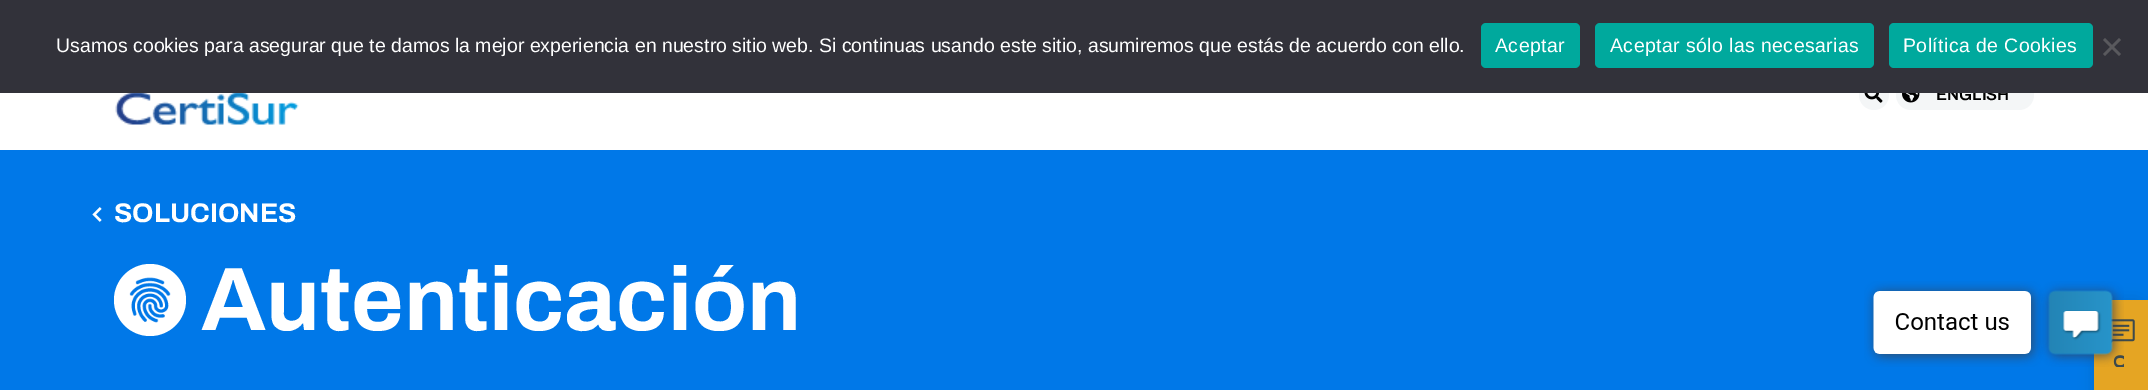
%!PS
<< /PageSize [2148 390] /PageUsesTransparency true >> setpagedevice
/rgb { 3 { 255 div 3 1 roll } repeat setrgbcolor } def
/font { [ exch dup neg 0 0 3 -1 roll 0 0 ] selectfont } def
/text { moveto show } def
/alpha { dup .setfillconstantalpha .setstrokeconstantalpha } def
/circle { newpath 0 360 arc closepath } def
/roundrect { 5 dict begin { /r /h /w /y /x } { exch def } forall
  x r add y moveto x w add y 2 copy h add r arct x w add y h add x 1 index r arct
  x y h add x y r arct x y 2 copy exch w add exch r arct closepath end } def
/shadow { 12 dict begin { /a /b /q /h /w /y /x } { exch def } forall gsave /was 0 def
  9 -2 -9 { dup b mul 4 div /e exch def 1 sub .425 mul 2.718 exch exp 1 add a .99 .min exch div /now exch def
    1 1 now sub 1 was sub div sub alpha /was now def
    w h .min e 2 mul add 0 gt { x e sub y e sub w e 2 mul add h e 2 mul add
      q e add b .6 mul add w h .min 2 div e add .min 0 .max roundrect fill } if } for grestore end } def
/picture { 5 dict begin { /h /w /y /x /name } { exch def } forall
  gsave x y translate w h scale
  w h 8 [w 0 0 h 0 0] name (r) file false 3 colorimage grestore end } def
0 .pushpdf14devicefilter
0 390 translate 1 -1 scale
4 setmiterlimit
255 255 255 rgb
0 0 2148 390 rectfill
(img_01.rgb) 115 93 184 32 picture
244 246 247 rgb
1874 95 15 circle fill
(img_02.rgb) 1864 93 19 10 picture
1896 80 138 30 15 roundrect fill
(img_03.rgb) 1902 93 18 10 picture
0 120 232 rgb
0 150 2148 240 rectfill
(img_04.rgb) 92 207 10 15 picture
255 255 255 rgb
150 300 36 circle fill
(img_05.rgb) 129 277 42 46 picture
0 0 0 rgb
2094 300 54 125 12 7.5 0.1 shadow
229 165 35 rgb
2094 300 54 90 rectfill
(img_06.rgb) 2111 319 24 24 picture
(img_07.rgb) 1864 281 260 86 picture
/Archivo-SemiBold 16.5 font
0 0 0 rgb
(ENGLISH) 1936 100 text
50 50 58 rgb
0 0 2148 93 rectfill
89 89 93 rgb
2119 38 moveto 2 2 rlineto -16 16 rlineto -2 -2 rlineto closepath fill
2103 40 moveto 2 -2 rlineto 16 16 rlineto -2 2 rlineto closepath fill
0 169 157 rgb
1889 23 204 45 5 roundrect fill
/LiberationSans-Regular 19.5 font
255 255 255 rgb
1903 52 moveto 0.4 0 (Política de Cookies) ashow
0 169 157 rgb
1595 23 279 45 5 roundrect fill
255 255 255 rgb
1610 52 moveto 0.4 0 (Aceptar sólo las necesarias) ashow
0 169 157 rgb
1481 23 99 45 5 roundrect fill
255 255 255 rgb
1495 52 moveto 0.4 0 (Aceptar) ashow
(Usamos cookies para asegurar que te damos la mejor experiencia en nuestro sitio web. Si continuas usando este sitio, asumiremos que estás de acuerdo con ello.) 56 52 text
/Archivo-Bold 27 font
(SOLUCIONES) 114 222 text
/Archivo-Bold 90 font
(Autenticación) 201 330 text
.poppdf14devicefilter showpage
